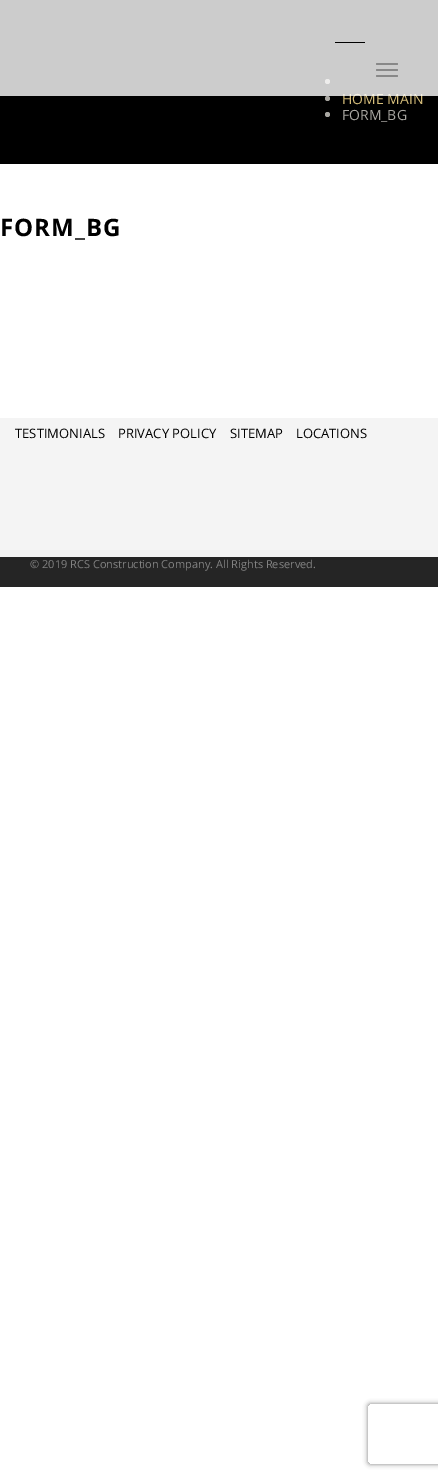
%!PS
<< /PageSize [438 1478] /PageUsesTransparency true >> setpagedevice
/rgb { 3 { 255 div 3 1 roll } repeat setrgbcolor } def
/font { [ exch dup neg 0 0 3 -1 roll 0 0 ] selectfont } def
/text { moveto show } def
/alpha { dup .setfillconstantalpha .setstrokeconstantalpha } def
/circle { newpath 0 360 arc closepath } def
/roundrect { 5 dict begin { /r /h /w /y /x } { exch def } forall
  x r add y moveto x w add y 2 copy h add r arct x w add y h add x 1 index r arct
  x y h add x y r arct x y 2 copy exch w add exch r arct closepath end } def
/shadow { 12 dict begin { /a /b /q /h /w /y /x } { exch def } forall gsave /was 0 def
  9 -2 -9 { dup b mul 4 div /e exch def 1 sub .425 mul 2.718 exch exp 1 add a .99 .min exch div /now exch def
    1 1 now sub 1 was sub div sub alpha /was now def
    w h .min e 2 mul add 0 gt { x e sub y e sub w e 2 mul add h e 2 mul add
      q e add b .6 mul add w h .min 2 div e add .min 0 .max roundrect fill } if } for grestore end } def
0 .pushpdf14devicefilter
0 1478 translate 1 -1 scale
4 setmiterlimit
255 255 255 rgb
0 0 438 1478 rectfill
0 0 0 rgb
0 0 438 164 rectfill
169 167 162 rgb
327.5 81.5 2.5 circle fill
327.5 98.5 2.5 circle fill
327.5 114.5 2.5 circle fill
244 244 244 rgb
0 418 438 139 rectfill
37 37 37 rgb
0 557 438 30 rectfill
gsave
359 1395 moveto 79 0 rlineto 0 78 rlineto -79 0 rlineto closepath 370 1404 moveto 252 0 rlineto 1 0 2 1 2 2 rcurveto 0 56 rlineto 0 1 -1 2 -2 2 rcurveto -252 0 rlineto -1 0 -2 -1 -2 -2 rcurveto 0 -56 rlineto 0 -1 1 -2 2 -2 rcurveto closepath eoclip newpath
128 128 128 rgb
368 1404 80 60 2 2.5 1 shadow
grestore
/OpenSans-Regular 14 font
213 189 122 rgb
(HOME MAIN) 342 104 text
0.8 alpha
255 255 255 rgb
0 0 438 96 rectfill
1 alpha
0 0 0 rgb
335 42 30 1 rectfill
136 136 136 rgb
376 75 22 2 1 roundrect fill
376 69 22 2 1 roundrect fill
376 63 22 2 1 roundrect fill
169 167 162 rgb
(FORM_BG) 342 120 text
/OpenSans-Bold 24 font
0 0 0 rgb
0 236 moveto 1 0 (FORM_BG) ashow
/OpenSans-Regular 13 font
(TESTIMONIALS) 15 438 text
(PRIVACY POLICY) 118 438 text
(SITEMAP) 230 438 text
(LOCATIONS) 296 438 text
/OpenSans-Regular 11 font
130 130 130 rgb
(© 2019 RCS Construction Company. All Rights Reserved.) 30 568 text
.poppdf14devicefilter showpage
